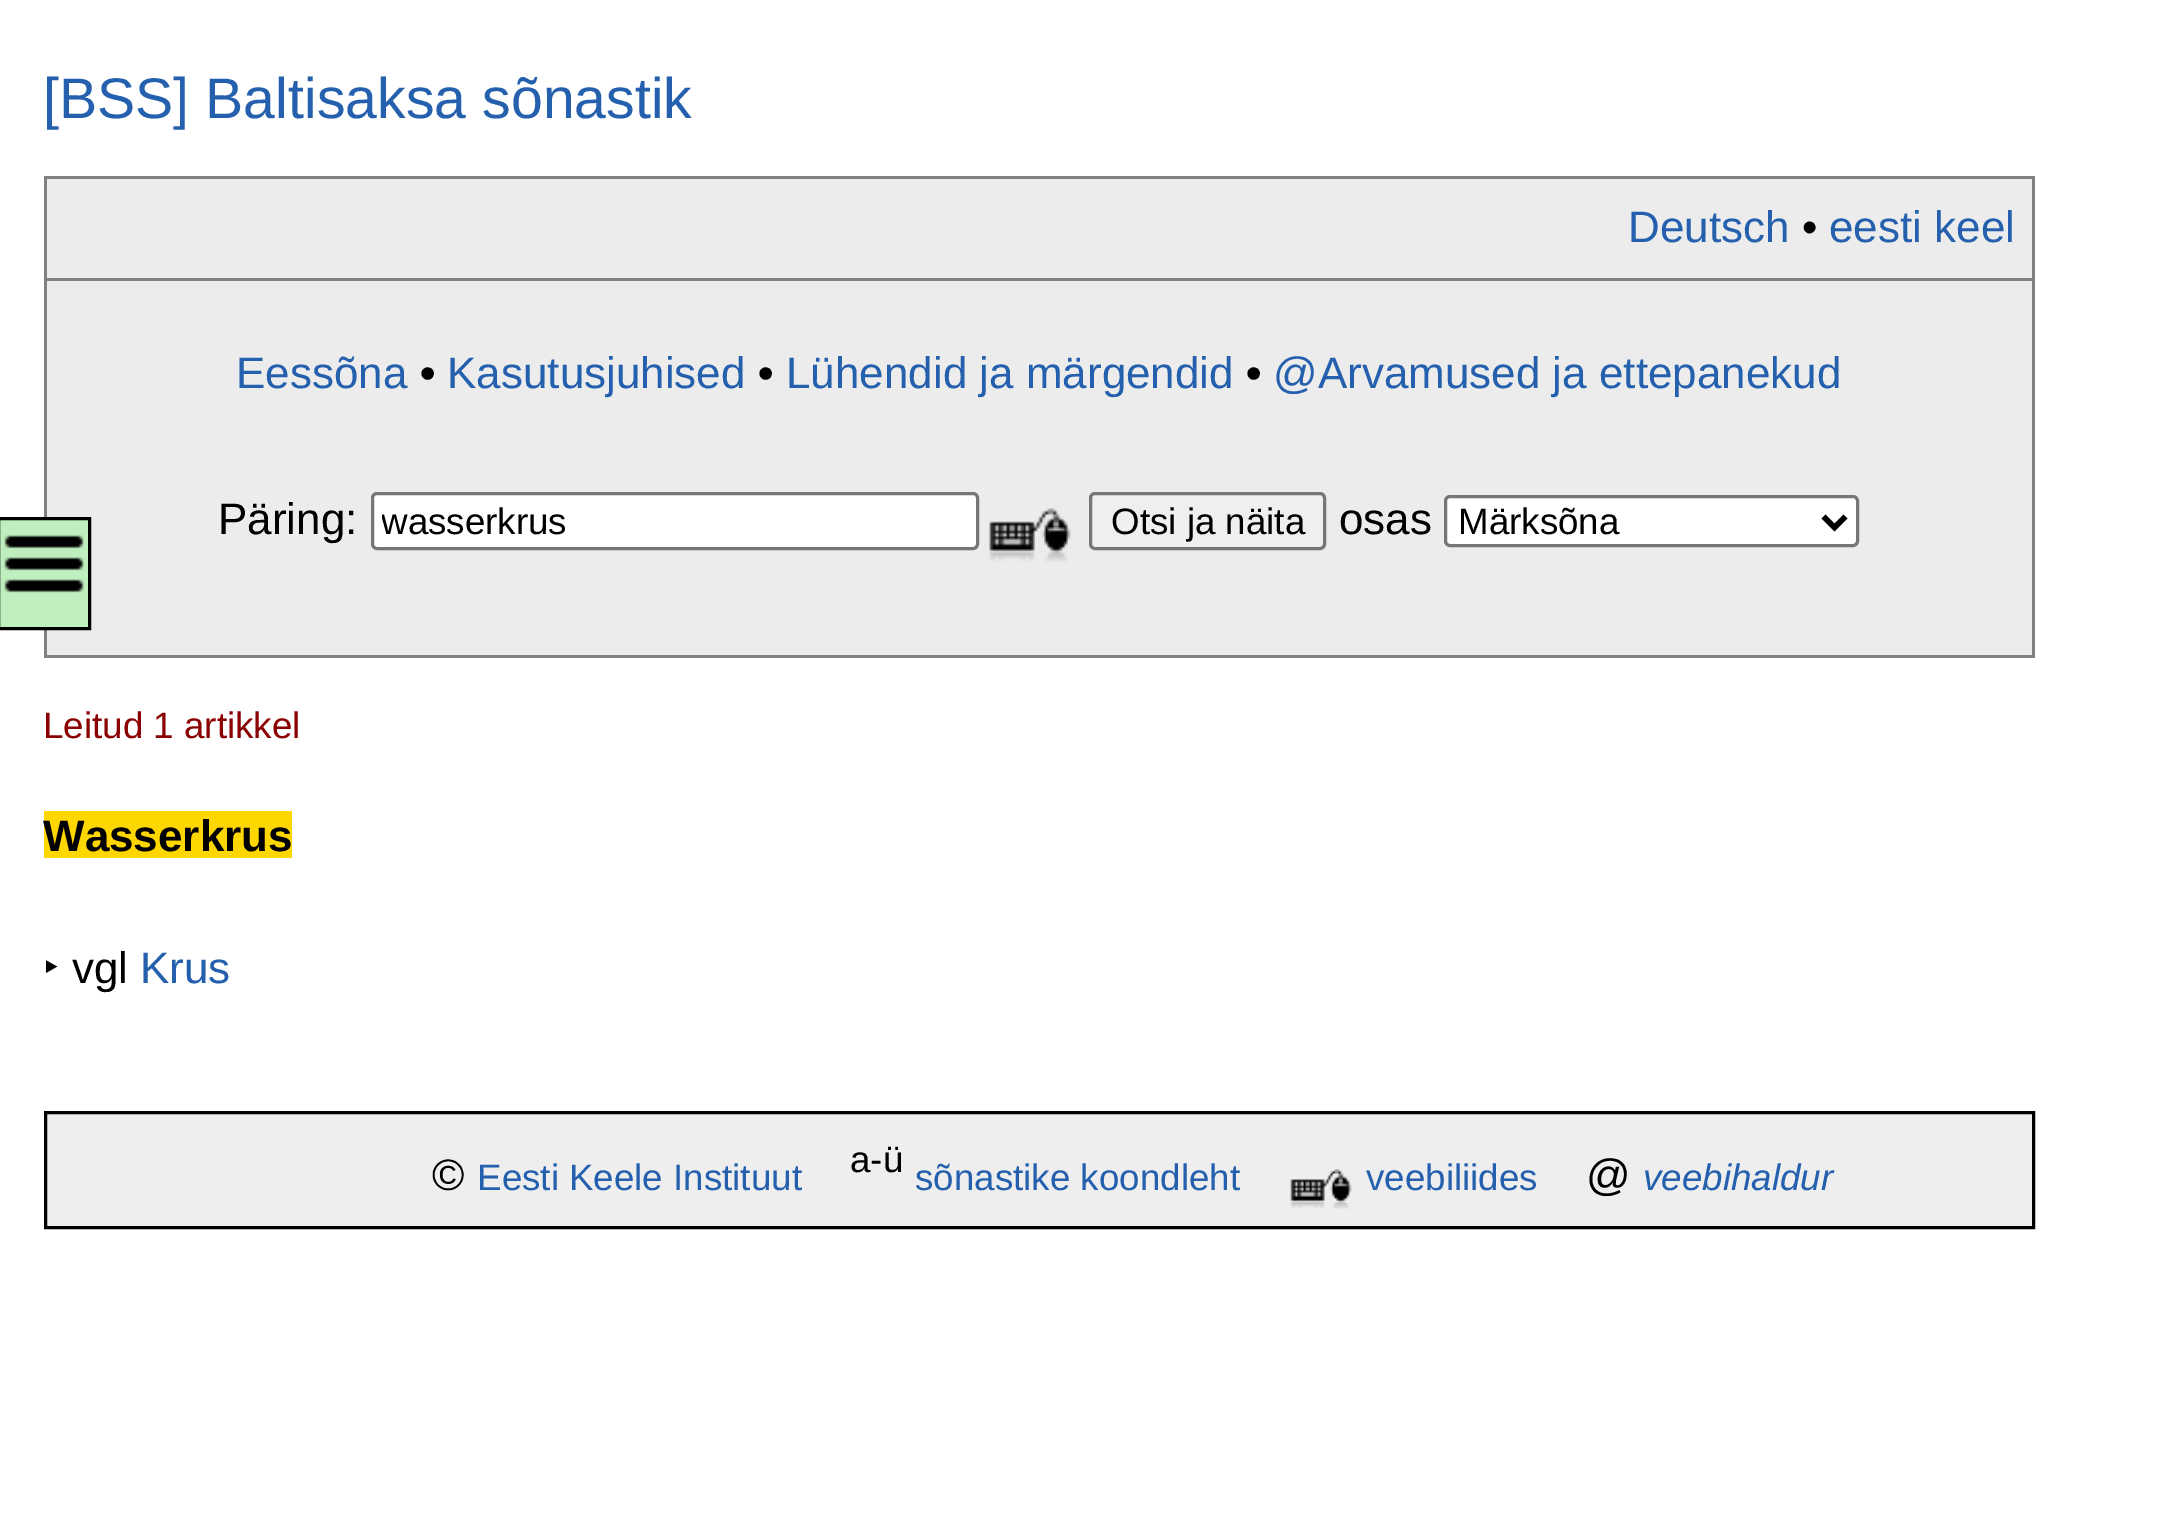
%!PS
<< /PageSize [2163 1518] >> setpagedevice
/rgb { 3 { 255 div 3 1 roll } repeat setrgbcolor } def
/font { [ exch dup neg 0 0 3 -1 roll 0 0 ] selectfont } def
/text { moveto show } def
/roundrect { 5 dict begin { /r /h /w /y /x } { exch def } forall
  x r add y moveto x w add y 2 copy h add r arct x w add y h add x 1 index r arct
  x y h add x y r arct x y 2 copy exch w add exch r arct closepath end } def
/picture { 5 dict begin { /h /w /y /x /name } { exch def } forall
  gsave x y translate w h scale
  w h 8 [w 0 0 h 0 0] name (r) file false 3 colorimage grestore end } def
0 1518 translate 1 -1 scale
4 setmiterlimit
255 255 255 rgb
0 0 2163 1518 rectfill
236 236 236 rgb
47 179 1985 476 rectfill
128 128 128 rgb
44 176 1991 3 rectfill
2032 176 3 481 rectfill
44 655 1991 3 rectfill
44 176 3 481 rectfill
44 278 1991 3 rectfill
191 238 191 rgb
-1.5 518.5 moveto 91 0 rlineto 0 110 rlineto -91 0 rlineto closepath gsave fill grestore
0 0 0 rgb
3 setlinewidth
stroke
(img_01.rgb) 4 535 80 58 picture
255 255 255 rgb
372.5 493.5 605 55 4.5 roundrect gsave fill grestore
118 118 118 rgb
stroke
(img_02.rgb) 989 508 82 54 picture
239 239 239 rgb
1090.5 493.5 234 55 4.5 roundrect gsave fill grestore
118 118 118 rgb
stroke
255 255 255 rgb
1445.5 496.5 412 49 4.5 roundrect gsave fill grestore
118 118 118 rgb
stroke
0 0 0 rgb
5.5 setlinewidth
1823.5 516.5 moveto 11 11 rlineto 11 -11 rlineto stroke
255 215 0 rgb
44 811 248 47 rectfill
238 238 238 rgb
45.5 1112.5 moveto 1988 0 rlineto 0 115 rlineto -1988 0 rlineto closepath gsave fill grestore
0 0 0 rgb
3 setlinewidth
stroke
(img_03.rgb) 1290 1169 62 40 picture
/LiberationSans-Regular 57.25 font
36 96 173 rgb
([BSS] Baltisaksa sõnastik) 43 118 text
/LiberationSans-Regular 44 font
(Deutsch) 1628 242 text
0 0 0 rgb
(•) 1802 242 text
36 96 173 rgb
(eesti keel) 1829 242 text
(Eessõna) 236 388 text
/LiberationSans-Bold 44 font
0 0 0 rgb
(•) 420 388 text
/LiberationSans-Regular 44 font
36 96 173 rgb
(Kasutusjuhised) 447 388 text
/LiberationSans-Bold 44 font
0 0 0 rgb
(•) 758 388 text
/LiberationSans-Regular 44 font
36 96 173 rgb
(Lühendid ja märgendid) 786 388 text
/LiberationSans-Bold 44 font
0 0 0 rgb
(•) 1246 388 text
/LiberationSans-Regular 44 font
36 96 173 rgb
(@Arvamused ja ettepanekud) 1273 388 text
0 0 0 rgb
(Päring:) 218 534 text
gsave
382 501 586 41 rectclip
/LiberationSans-Regular 36.75 font
(wasserkrus) 381 534 text
grestore
/LiberationSans-Regular 36.75 font
(Otsi ja näita) 1111 534 text
/LiberationSans-Regular 44 font
(osas) 1339 534 text
/LiberationSans-Regular 36.75 font
(Märksõna) 1458 534 text
139 0 0 rgb
(Leitud 1 artikkel) 43 738 text
/LiberationSans-Bold 44 font
0 0 0 rgb
(Wasserkrus) 43 851 text
/NotoSans-Regular 44 font
(‣) 43 983 text
/LiberationSans-Regular 44 font
(vgl) 72 983 text
36 96 173 rgb
(Krus) 140 983 text
0 0 0 rgb
(©) 432 1190 text
/LiberationSans-Regular 36.75 font
36 96 173 rgb
(Eesti Keele Instituut) 477 1190 text
0 0 0 rgb
(a-ü) 850 1172 text
36 96 173 rgb
(sõnastike koondleht) 915 1190 text
(veebiliides) 1366 1190 text
/LiberationSans-Regular 44 font
0 0 0 rgb
(@) 1586 1190 text
/LiberationSans-Italic 36.75 font
36 96 173 rgb
(veebihaldur) 1643 1190 text
showpage
